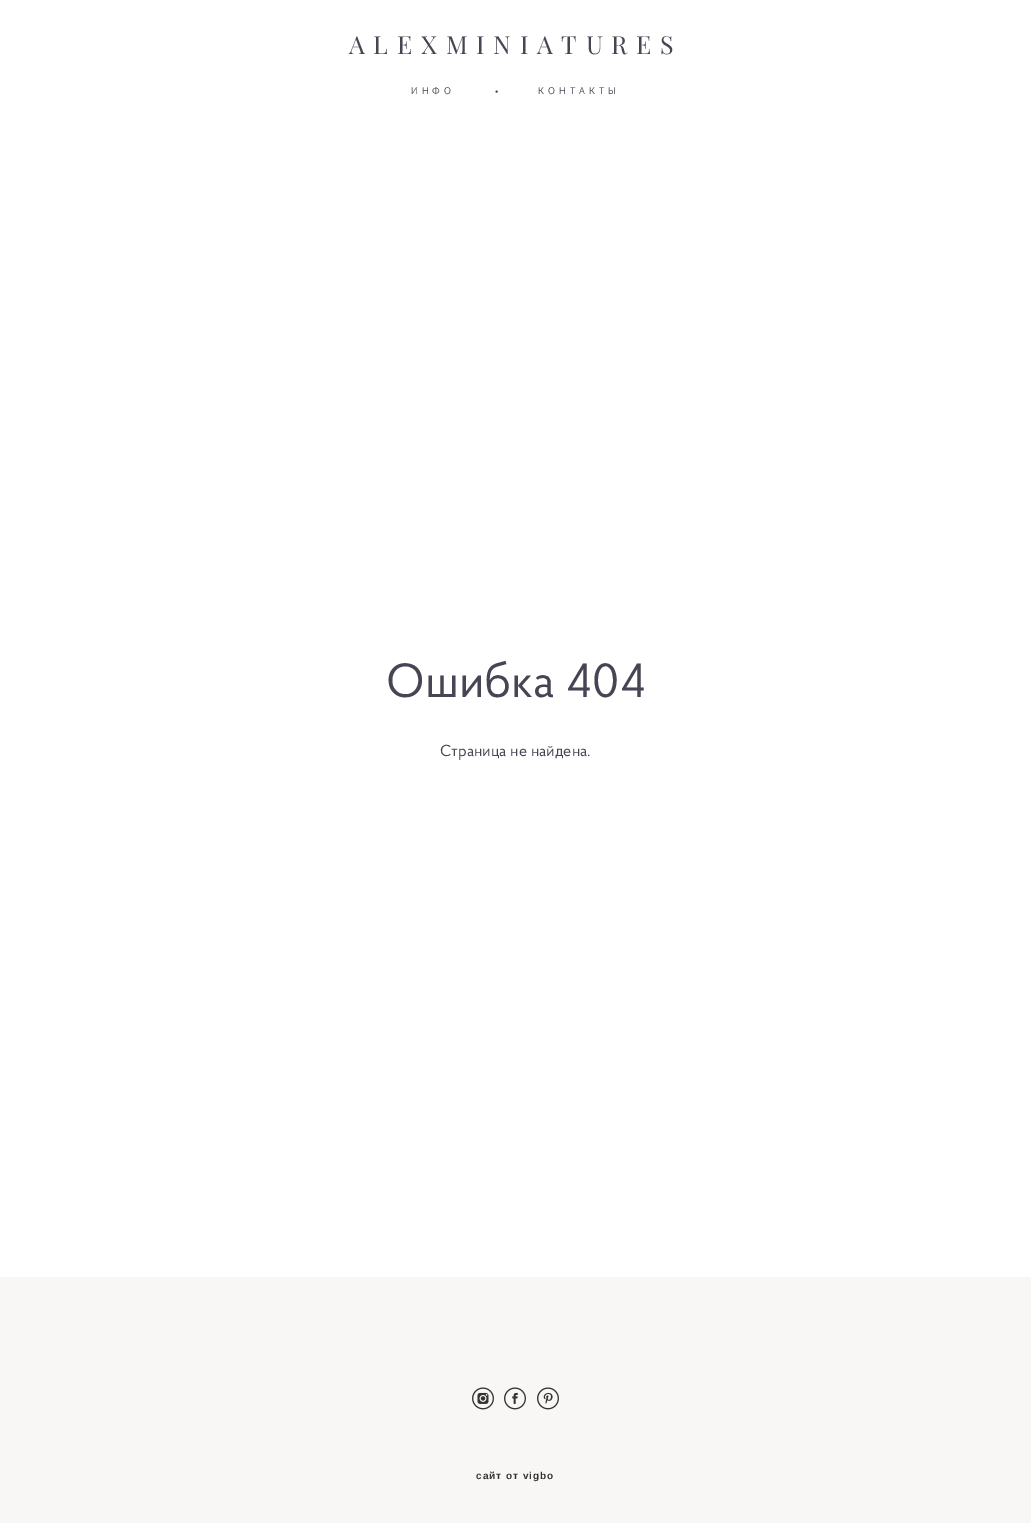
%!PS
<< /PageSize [1031 1523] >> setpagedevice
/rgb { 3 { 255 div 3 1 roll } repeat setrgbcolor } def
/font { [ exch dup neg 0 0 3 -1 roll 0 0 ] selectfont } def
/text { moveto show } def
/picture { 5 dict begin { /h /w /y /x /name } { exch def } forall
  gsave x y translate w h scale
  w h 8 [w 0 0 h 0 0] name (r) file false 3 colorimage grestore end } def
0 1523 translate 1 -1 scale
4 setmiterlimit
255 255 255 rgb
0 0 1031 1523 rectfill
248 247 245 rgb
0 1277 1031 246 rectfill
(img_01.rgb) 472 1387 22 23 picture
(img_02.rgb) 504 1387 22 23 picture
(img_03.rgb) 537 1387 22 23 picture
/PlayfairDisplay-Regular 25 font
70 69 83 rgb
349 54 moveto 8.75 0 (ALEXMINIATURES) ashow
/DidactGothic-Regular 10 font
411 94 moveto 4 0 (ИНФО) ashow
(•) 495 94 text
538 94 moveto 4 0 (КОНТАКТЫ) ashow
/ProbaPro-Regular 48 font
(Ошибка 404) 386 697 text
/ProbaPro-Regular 16 font
(Страница не найдена.) 440 756 text
/LiberationSans-Bold 10 font
51 51 51 rgb
476 1479 moveto 1 0 (сайт от vigbo) ashow
showpage
